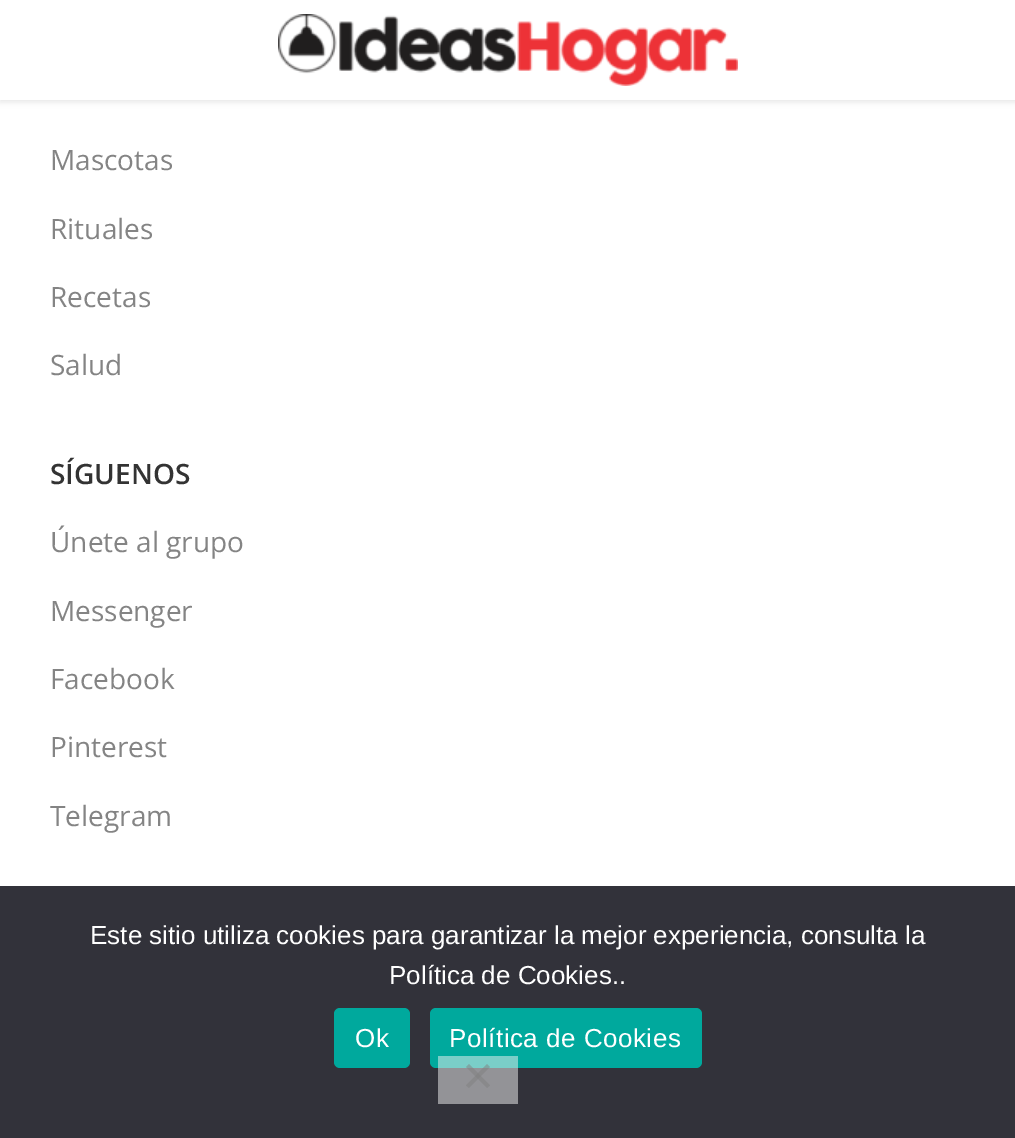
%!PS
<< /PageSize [1015 1138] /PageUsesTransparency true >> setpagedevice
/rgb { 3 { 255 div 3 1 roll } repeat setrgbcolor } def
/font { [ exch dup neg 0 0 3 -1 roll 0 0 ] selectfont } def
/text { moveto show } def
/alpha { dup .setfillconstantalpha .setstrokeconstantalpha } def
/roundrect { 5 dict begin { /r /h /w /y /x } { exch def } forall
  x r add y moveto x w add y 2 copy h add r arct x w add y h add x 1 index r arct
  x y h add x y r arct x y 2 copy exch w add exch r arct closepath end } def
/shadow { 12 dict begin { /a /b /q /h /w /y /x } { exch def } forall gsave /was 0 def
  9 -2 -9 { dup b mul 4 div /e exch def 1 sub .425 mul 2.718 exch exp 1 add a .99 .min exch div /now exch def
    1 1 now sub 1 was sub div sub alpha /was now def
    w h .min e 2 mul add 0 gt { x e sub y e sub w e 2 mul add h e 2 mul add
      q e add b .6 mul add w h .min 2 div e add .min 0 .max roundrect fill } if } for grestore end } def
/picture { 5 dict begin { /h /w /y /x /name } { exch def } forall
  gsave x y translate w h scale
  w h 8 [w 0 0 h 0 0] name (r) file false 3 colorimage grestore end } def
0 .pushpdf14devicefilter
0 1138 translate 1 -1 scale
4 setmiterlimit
255 255 255 rgb
0 0 1015 1138 rectfill
0 0 0 rgb
0 2 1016 100 0 3 0.1 shadow
255 255 255 rgb
0 0 1015 100 rectfill
(img_01.rgb) 278 14 460 72 picture
50 50 58 rgb
0 886 1015 252 rectfill
147 147 151 rgb
438 1068 80 36 rectfill
0 169 157 rgb
334 1008 76 60 6 roundrect fill
430 1008 272 60 6 roundrect fill
122 206 200 rgb
438 1056 80 12 rectfill
0.5 alpha
128 128 128 rgb
487 1064 moveto 3 3 rlineto -21 21 rlineto -3 -2.5 rlineto closepath fill
466 1067 moveto 3 -3 rlineto 21 21.5 rlineto -3 2.5 rlineto closepath fill
/OpenSans-Regular 28 font
1 alpha
132 132 132 rgb
(Mascotas) 50 170 text
(Rituales) 50 239 text
(Recetas) 50 307 text
(Salud) 50 375 text
/OpenSans-SemiBold 28 font
51 51 51 rgb
(SÍGUENOS) 50 484 text
/OpenSans-Regular 28 font
132 132 132 rgb
(Únete al grupo) 50 552 text
(Messenger) 50 621 text
(Facebook) 50 689 text
(Pinterest) 50 757 text
(Telegram) 50 826 text
/LiberationSans-Regular 26 font
255 255 255 rgb
(Este sitio utiliza cookies para garantizar la mejor experiencia, consulta la) 90 944 text
(Política de Cookies..) 389 984 text
355 1047 moveto 0.5 0 (Ok) ashow
449 1047 moveto 0.5 0 (Política de Cookies) ashow
.poppdf14devicefilter showpage
